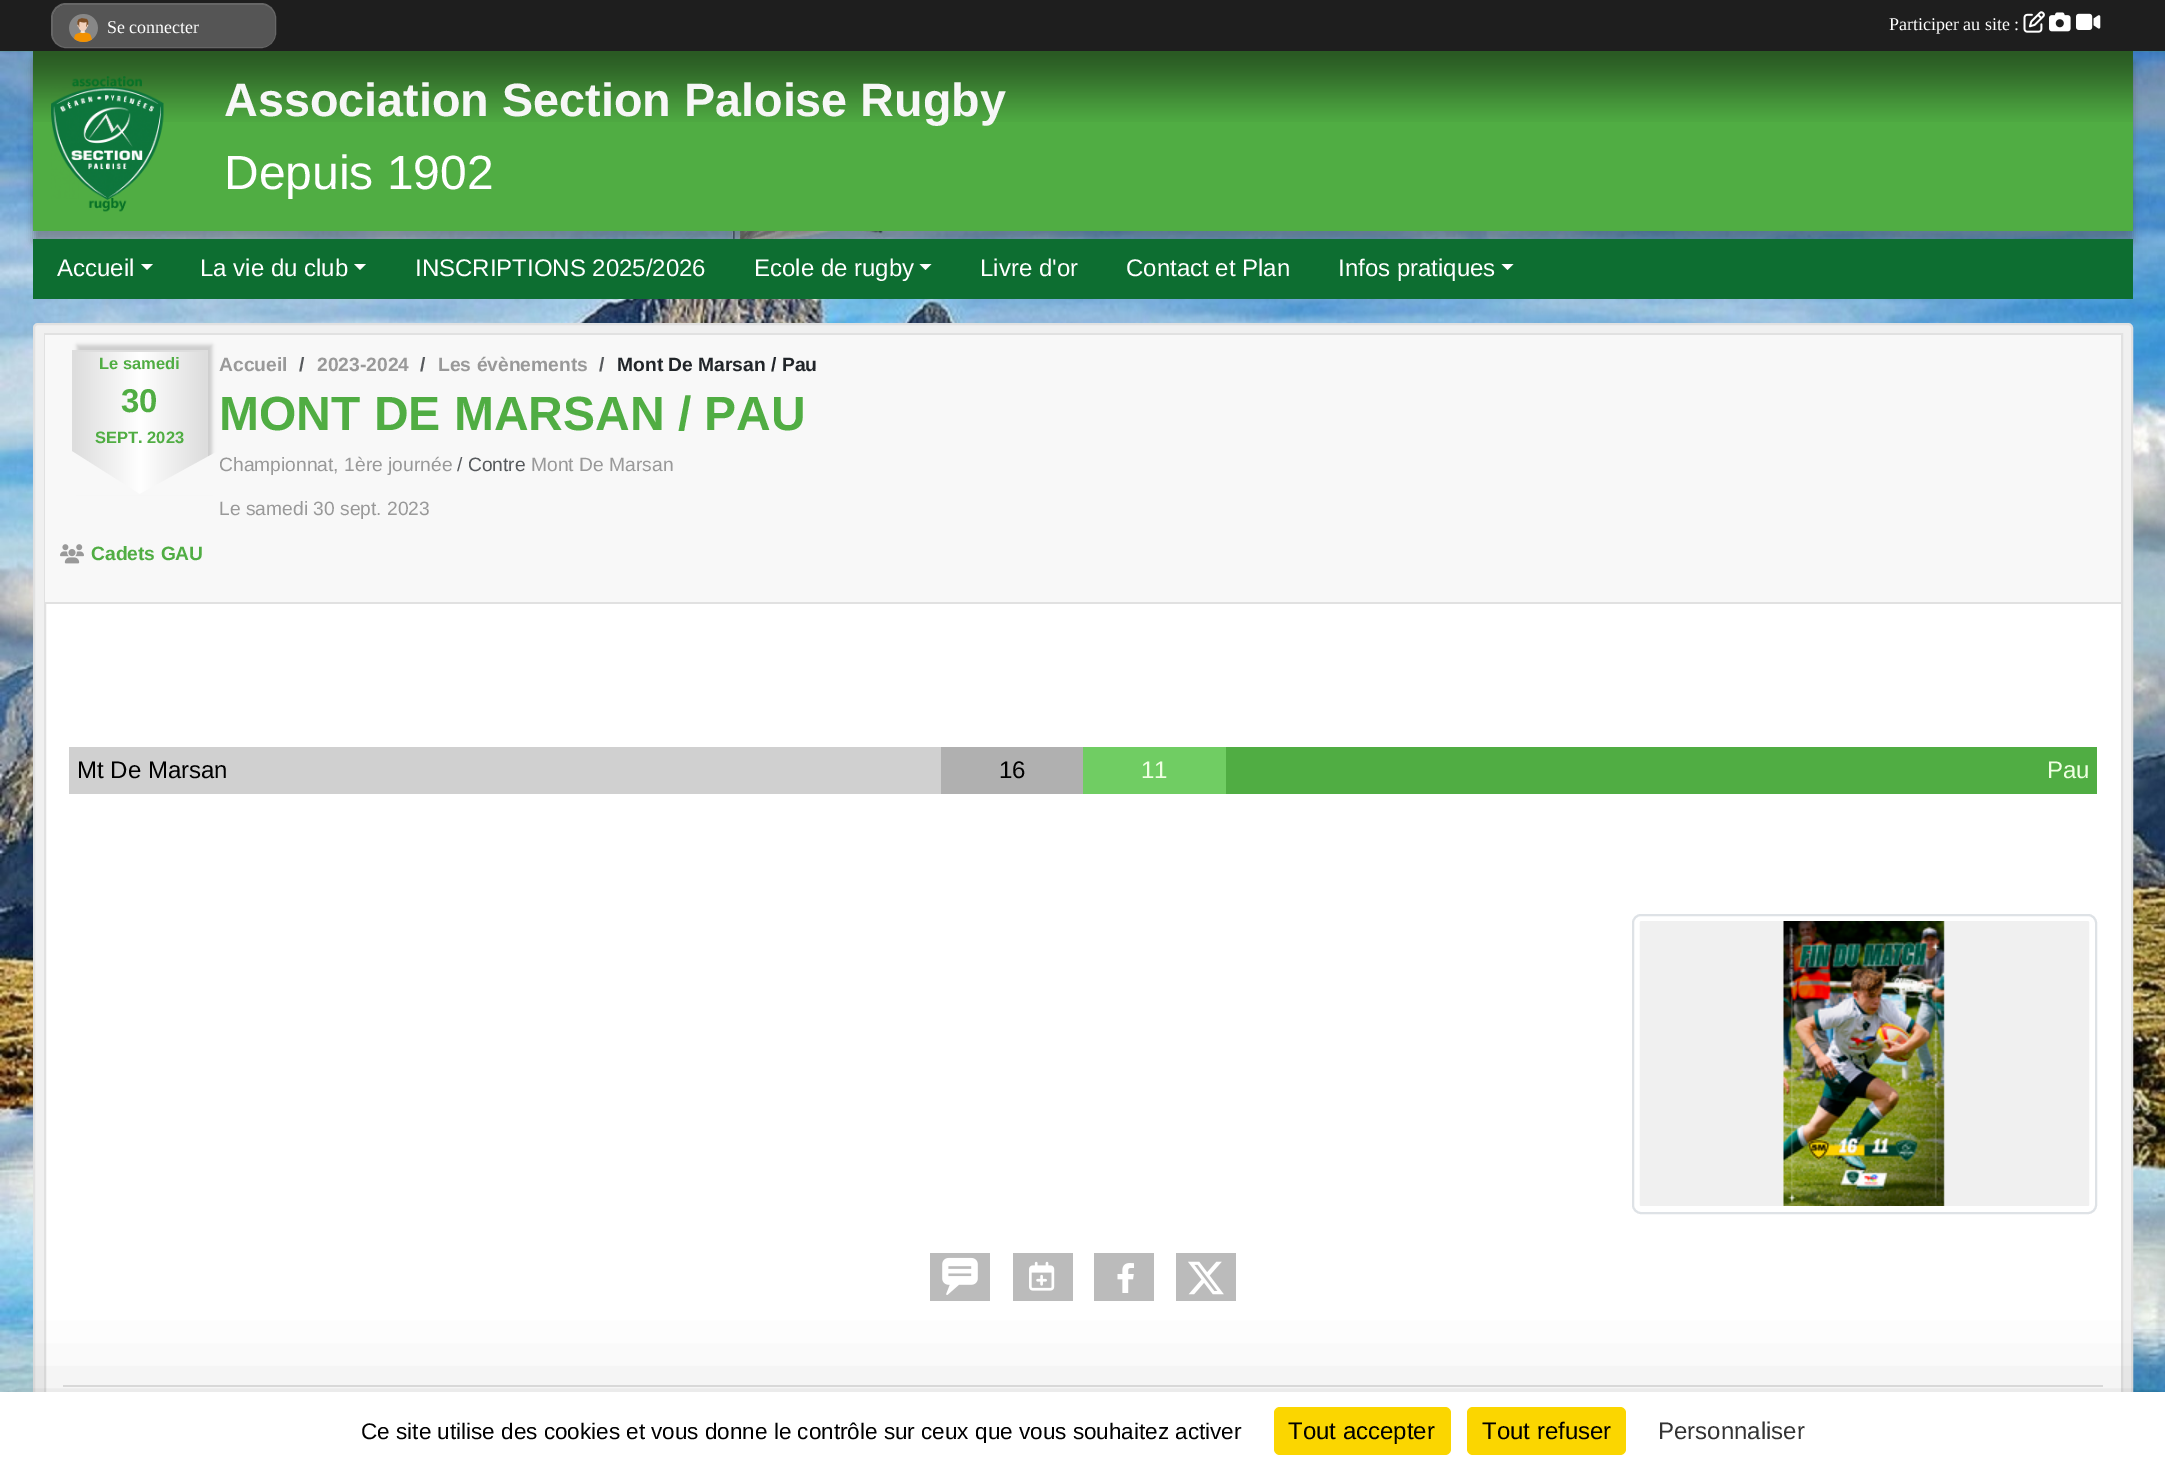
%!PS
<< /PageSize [2165 1470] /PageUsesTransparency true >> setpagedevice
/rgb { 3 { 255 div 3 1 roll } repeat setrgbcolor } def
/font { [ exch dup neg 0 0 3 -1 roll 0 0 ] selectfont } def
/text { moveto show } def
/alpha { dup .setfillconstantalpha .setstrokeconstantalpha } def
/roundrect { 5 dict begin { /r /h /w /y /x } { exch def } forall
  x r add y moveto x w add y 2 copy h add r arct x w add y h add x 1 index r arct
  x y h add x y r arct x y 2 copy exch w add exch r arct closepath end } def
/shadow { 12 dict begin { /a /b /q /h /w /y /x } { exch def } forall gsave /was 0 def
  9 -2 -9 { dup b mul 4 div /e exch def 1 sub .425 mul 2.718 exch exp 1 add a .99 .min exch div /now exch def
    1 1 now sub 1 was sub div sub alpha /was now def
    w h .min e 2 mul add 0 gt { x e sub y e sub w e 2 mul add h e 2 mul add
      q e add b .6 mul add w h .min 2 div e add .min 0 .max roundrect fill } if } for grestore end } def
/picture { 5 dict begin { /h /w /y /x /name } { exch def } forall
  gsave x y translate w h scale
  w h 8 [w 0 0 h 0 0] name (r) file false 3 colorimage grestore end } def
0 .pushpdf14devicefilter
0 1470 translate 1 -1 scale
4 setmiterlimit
255 255 255 rgb
0 0 2165 1470 rectfill
(img_01.rgb) 0 51 2165 1341 picture
80 80 80 rgb
33 62 2100 180 0 4 0.5 shadow
30 30 30 rgb
0 0 2165 51 rectfill
51 51 51 rgb
52 4 223 43 14 roundrect gsave fill grestore
102 102 102 rgb
2 setlinewidth
stroke
85 85 85 rgb
53 5 222 42 14 roundrect fill
(img_02.rgb) 69 14 29 28 picture
(img_03.rgb) 2023 11 22 22 picture
(img_04.rgb) 2049 12 22 20 picture
(img_05.rgb) 2076 13 25 17 picture
80 173 67 rgb
33 51 2100 180 rectfill
(img_06.rgb) 33 51 2100 71 picture
(img_07.rgb) 51 76 113 136 picture
13 110 49 rgb
33 239 2100 60 rectfill
255 255 255 rgb
141 264 moveto 12 0 rlineto -6 6 rlineto closepath fill
354 264 moveto 12 0 rlineto -6 6 rlineto closepath fill
919.5 264 moveto 12 0 rlineto -6 6 rlineto closepath fill
1501.5 264 moveto 12 0 rlineto -6 6 rlineto closepath fill
240 240 240 rgb
34 324 2098 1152 4 roundrect gsave fill grestore
225 225 225 rgb
stroke
255 255 255 rgb
46 604 2075 788 rectfill
225 225 225 rgb
45 334 2077 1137 rectstroke
248 248 248 rgb
45 335 2076 267 rectfill
225 225 225 rgb
45 602 2076 2 rectfill
204 204 204 rgb
77 345 135 146 0 2 1 shadow
gsave 72 350 moveto 2 0 rlineto 0 103 rlineto -2 0 rlineto closepath clip newpath
<< /ShadingType 2 /ColorSpace /DeviceRGB /Coords [-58 423 74 423] /Extend [true true] /Function << /FunctionType 3 /Domain [0 1] /Functions [<< /FunctionType 2 /Domain [0 1] /C0 [0.867 0.867 0.867] /C1 [1 1 1] /N 1 >> << /FunctionType 2 /Domain [0 1] /C0 [1 1 1] /C1 [0.867 0.867 0.867] /N 1 >>] /Bounds [0.5] /Encode [0 1 0 1] >> >> shfill grestore
gsave 74 352 moveto 132 0 rlineto 0 143 rlineto -132 0 rlineto closepath clip newpath
<< /ShadingType 2 /ColorSpace /DeviceRGB /Coords [74 423 206 423] /Extend [true true] /Function << /FunctionType 3 /Domain [0 1] /Functions [<< /FunctionType 2 /Domain [0 1] /C0 [0.867 0.867 0.867] /C1 [1 1 1] /N 1 >> << /FunctionType 2 /Domain [0 1] /C0 [1 1 1] /C1 [0.867 0.867 0.867] /N 1 >>] /Bounds [0.5] /Encode [0 1 0 1] >> >> shfill grestore
221 221 221 rgb
72 350 135 2 rectfill
206 350 2 108 rectfill
248 248 248 rgb
70 495 moveto 0 -45 rlineto 71 45 rlineto closepath fill
(img_08.rgb) 60 544 24 20 picture
208 208 208 rgb
69 747 872 47 rectfill
176 176 176 rgb
941 747 142 47 rectfill
112 205 99 rgb
1083 747 143 47 rectfill
80 173 67 rgb
1226 747 871 47 rectfill
222 226 230 rgb
1633 915 463 298 8 roundrect stroke
(img_09.rgb) 1639 921 451 285 picture
187 187 187 rgb
930 1253 60 48 rectfill
(img_10.rgb) 942 1257 36 38 picture
1013 1253 60 48 rectfill
(img_11.rgb) 1029 1261 26 30 picture
1094 1253 60 48 rectfill
(img_12.rgb) 1117 1263 17 30 picture
1176 1253 60 48 rectfill
(img_13.rgb) 1188 1261 36 34 picture
225 225 225 rgb
63 1385 2040 2 rectfill
0 0 0 rgb
0 1422 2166 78 0 45 0.25 shadow
255 255 255 rgb
0 1392 2165 78 rectfill
251 214 0 rgb
1274 1407 177 48 6 roundrect fill
1467 1407 159 48 6 roundrect fill
/LiberationSerif-Regular 18 font
255 255 255 rgb
(Se connecter) 107 33 text
(Participer au site :) 1889 30 text
/LiberationSans-Bold 46.75 font
247 247 247 rgb
(Association Section Paloise Rugby) 224 116 text
/LiberationSans-Regular 48 font
255 255 255 rgb
(Depuis 1902) 224 189 text
/LiberationSans-Regular 24 font
(Accueil) 57 276 text
(La vie du club) 200 276 text
(INSCRIPTIONS 2025/2026) 415 276 text
(Ecole de rugby) 754 276 text
(Livre d'or) 980 276 text
(Contact et Plan) 1126 276 text
(Infos pratiques) 1338 276 text
/LiberationSans-Bold 16.5 font
80 173 67 rgb
(Le samedi) 99 369 text
/LiberationSans-Bold 33 font
(30) 121 412 text
/LiberationSans-Bold 16.5 font
(SEPT. 2023) 95 443 text
/LiberationSans-Bold 19.25 font
153 153 153 rgb
(Accueil) 219 371 text
87 90 93 rgb
(/) 299 371 text
153 153 153 rgb
(2023-2024) 317 371 text
87 90 93 rgb
(/) 420 371 text
153 153 153 rgb
(Les évènements) 438 371 text
87 90 93 rgb
(/) 599 371 text
33 37 41 rgb
(Mont De Marsan / Pau) 617 371 text
/LiberationSans-Bold 48 font
80 173 67 rgb
(MONT DE MARSAN / PAU) 219 430 text
/LiberationSans-Regular 19.25 font
153 153 153 rgb
(Championnat, 1ère journée) 219 471 text
248 248 248 rgb
220 450 moveto 0 45 rlineto -82 0 rlineto closepath fill
87 90 93 rgb
(/ Contre) 457 471 text
153 153 153 rgb
(Mont De Marsan) 531 471 text
(Le samedi 30 sept. 2023) 219 515 text
/LiberationSans-Bold 19.25 font
80 173 67 rgb
(Cadets GAU) 91 560 text
/LiberationSans-Regular 24 font
0 0 0 rgb
(Mt De Marsan) 77 778 text
(16) 999 778 text
240 255 227 rgb
(11) 1141 778 text
(Pau) 2047 778 text
gsave
347 1418 910 25 rectclip
/LiberationSans-Regular 22.5 font
0 0 0 rgb
(Ce site utilise des cookies et vous donne le contrôle sur ceux que vous souhaitez activer) 361 1439 text
grestore
0 0 0 rgb
(Tout accepter) 1288 1439 text
(Tout refuser) 1482 1439 text
51 51 51 rgb
(Personnaliser) 1658 1439 text
.poppdf14devicefilter showpage
